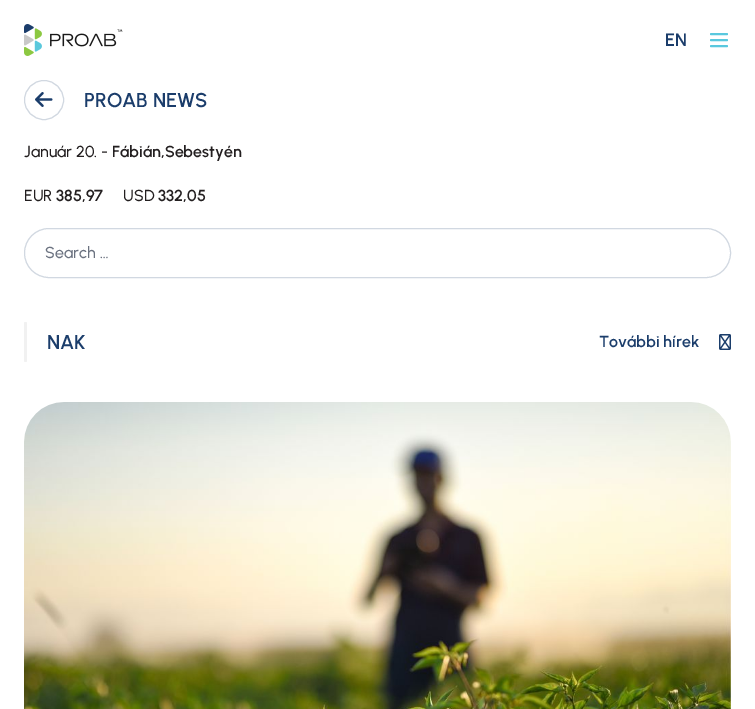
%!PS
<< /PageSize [755 709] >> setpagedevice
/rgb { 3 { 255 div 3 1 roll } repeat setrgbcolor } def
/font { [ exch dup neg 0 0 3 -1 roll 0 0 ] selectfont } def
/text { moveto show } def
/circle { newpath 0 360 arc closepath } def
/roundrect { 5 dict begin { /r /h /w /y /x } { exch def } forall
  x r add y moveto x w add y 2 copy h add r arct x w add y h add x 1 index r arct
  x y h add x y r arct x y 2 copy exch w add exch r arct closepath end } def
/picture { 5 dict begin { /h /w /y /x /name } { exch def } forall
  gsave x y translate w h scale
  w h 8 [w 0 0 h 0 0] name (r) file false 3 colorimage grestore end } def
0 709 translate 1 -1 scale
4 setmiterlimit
255 255 255 rgb
0 0 755 709 rectfill
(img_01.rgb) 24 24 99 32 picture
89 200 222 rgb
2 setlinewidth
1 setlinecap
1 setlinejoin
711 34 moveto 16 0 rlineto 711 40 moveto 16 0 rlineto 711 46 moveto 16 0 rlineto stroke
209 216 225 rgb
1 setlinewidth
0 setlinecap
0 setlinejoin
44 100 19.5 circle stroke
(img_02.rgb) 35 92 18 15 picture
24.5 228.5 706 49 24.5 roundrect stroke
241 241 241 rgb
24 322 3 40 1.5 roundrect fill
(img_03.rgb) 719 334 12 16 picture
(img_04.rgb) 24 402 707 307 picture
/Urbanist-SemiBold 18 font
27 61 107 rgb
(EN) 665 46 text
/Urbanist-SemiBold 20 font
(PROAB NEWS) 84 107 text
/Urbanist-Medium 16 font
35 31 32 rgb
(Január 20. -) 24 157 text
/Urbanist-SemiBold 16 font
(Fábián,Sebestyén) 112 157 text
/Urbanist-Medium 16 font
(EUR) 24 201 text
/Urbanist-SemiBold 16 font
(385,97) 56 201 text
/Urbanist-Medium 16 font
(USD) 123 201 text
/Urbanist-SemiBold 16 font
(332,05) 158 201 text
/Urbanist-Medium 16 font
107 114 128 rgb
(Search …) 45 258 text
/Urbanist-SemiBold 20 font
27 61 107 rgb
(NAK) 47 349 text
/Urbanist-SemiBold 16 font
(További hírek) 599 347 text
showpage
